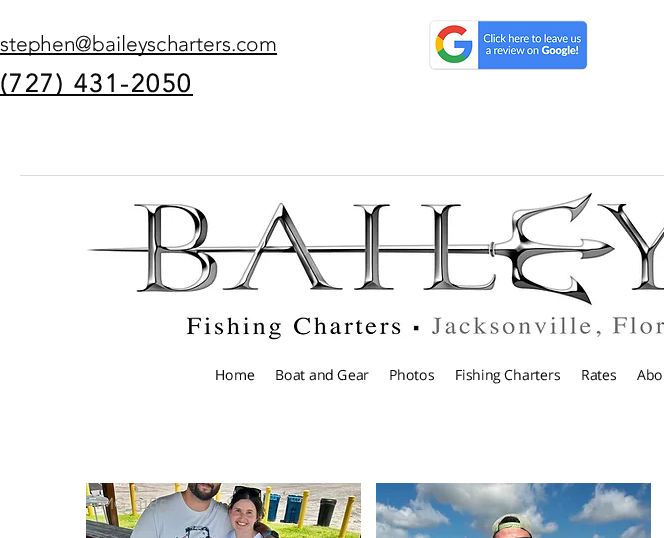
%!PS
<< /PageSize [664 538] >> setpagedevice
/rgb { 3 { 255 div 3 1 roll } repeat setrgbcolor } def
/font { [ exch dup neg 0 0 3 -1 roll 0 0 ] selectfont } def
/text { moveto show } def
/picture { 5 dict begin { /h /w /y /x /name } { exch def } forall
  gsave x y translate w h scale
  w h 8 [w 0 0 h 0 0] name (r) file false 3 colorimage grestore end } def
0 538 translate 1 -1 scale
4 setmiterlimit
255 255 255 rgb
0 0 664 538 rectfill
9 9 9 rgb
0 53 277 2 rectfill
(img_01.rgb) 429 20 159 50 picture
0 94 193 2 rectfill
218 218 218 rgb
20 175 644 1 rectfill
(img_02.rgb) 87 192 577 148 picture
(img_03.rgb) 86 483 275 55 picture
(img_04.rgb) 376 483 275 55 picture
/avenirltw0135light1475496-Light 21 font
9 9 9 rgb
(stephen@baileyscharters.com) 0 51 text
/avenirltw0135light1475496-Bold 25 font
0 92 moveto 2.5 0 (\(727\) 431-2050) ashow
/OpenSans-Regular 14 font
(Home) 215 380 text
(Boat and Gear) 275 380 text
(Photos) 389 380 text
(Fishing Charters) 455 380 text
(Rates) 581 380 text
(Abo) 637 380 text
/Raleway-Regular 16 font
168 163 152 rgb
(IMG_3185) 96 509 text
95 136 173 rgb
(I) 386 509 text
(_) 415 509 text
showpage
